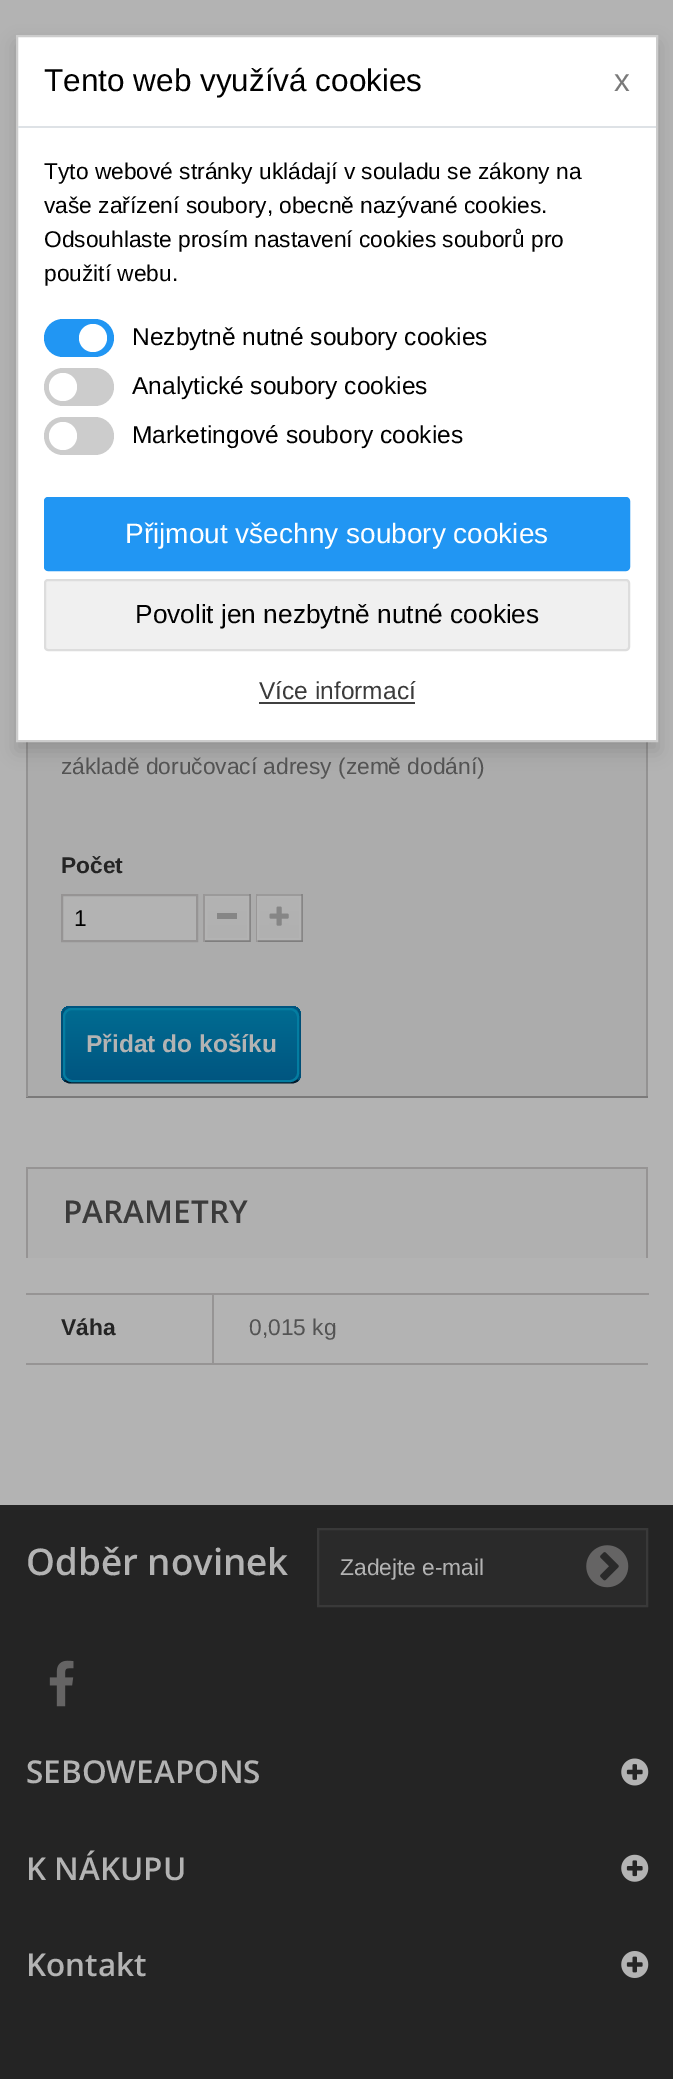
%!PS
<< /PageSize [673 2079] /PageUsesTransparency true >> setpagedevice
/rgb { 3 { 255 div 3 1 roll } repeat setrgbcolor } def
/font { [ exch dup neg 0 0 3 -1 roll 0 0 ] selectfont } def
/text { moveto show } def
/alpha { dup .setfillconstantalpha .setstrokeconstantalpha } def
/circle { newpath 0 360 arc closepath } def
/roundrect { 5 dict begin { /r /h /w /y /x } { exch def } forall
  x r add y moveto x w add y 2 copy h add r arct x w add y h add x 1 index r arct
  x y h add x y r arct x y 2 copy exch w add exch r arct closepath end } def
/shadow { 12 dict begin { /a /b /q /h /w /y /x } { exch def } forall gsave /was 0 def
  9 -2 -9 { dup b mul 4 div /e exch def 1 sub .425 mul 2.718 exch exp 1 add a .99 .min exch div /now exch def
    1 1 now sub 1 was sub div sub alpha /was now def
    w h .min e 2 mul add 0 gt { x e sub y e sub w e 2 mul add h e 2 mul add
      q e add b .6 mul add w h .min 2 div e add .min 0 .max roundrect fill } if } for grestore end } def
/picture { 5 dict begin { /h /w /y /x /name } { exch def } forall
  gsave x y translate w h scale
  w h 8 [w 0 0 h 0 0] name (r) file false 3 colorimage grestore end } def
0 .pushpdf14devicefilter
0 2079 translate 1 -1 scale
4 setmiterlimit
179 179 179 rgb
0 0 673 2079 rectfill
172 172 172 rgb
28 742 618 354 rectfill
147 146 146 rgb
646 742 2 355 rectfill
123 122 122 rgb
26 1096 622 2 rectfill
147 146 146 rgb
26 742 2 355 rectfill
0 0 0 rgb
16 44 642 707 0 9 0.15 shadow
255 255 255 rgb
17 36 moveto 640 0 rlineto 0 705 rlineto -640 0 rlineto closepath gsave fill grestore
204 204 204 rgb
2 setlinewidth
stroke
222 226 230 rgb
18 126 638 2 rectfill
33 150 243 rgb
44 319 70 38 19 roundrect fill
255 255 255 rgb
93 338 14 circle fill
204 204 204 rgb
44 368 70 38 19 roundrect fill
255 255 255 rgb
63 387 14 circle fill
204 204 204 rgb
44 417 70 38 19 roundrect fill
255 255 255 rgb
63 436 14 circle fill
33 150 243 rgb
45 498 584 72 3 roundrect gsave fill grestore
stroke
240 240 240 rgb
45 580 584 70 3 roundrect gsave fill grestore
221 221 221 rgb
stroke
64 64 64 rgb
259 702 156 2 rectfill
179 179 179 rgb
62 895 moveto 135 0 rlineto 0 46 rlineto -135 0 rlineto closepath gsave fill grestore
150 148 148 rgb
stroke
155 154 154 rgb
203 894 47 2 rectfill
135 134 134 rgb
249 894 2 48 rectfill
127 126 126 rgb
203 940 47 2 rectfill
153 151 151 rgb
203 894 2 48 rectfill
gsave 207 898 moveto 40 0 rlineto 0 40 rlineto -40 0 rlineto closepath clip newpath
<< /ShadingType 2 /ColorSpace /DeviceRGB /Coords [227 898 227 938] /Extend [true true] /Function << /FunctionType 2 /Domain [0 1] /C0 [0.702 0.702 0.702] /C1 [0.69 0.69 0.69] /N 1 >> >> shfill grestore
179 179 179 rgb
206 897 42 42 rectstroke
134 134 134 rgb
217 913 20 6 rectfill
155 154 154 rgb
256 894 47 2 rectfill
135 134 134 rgb
301 894 2 48 rectfill
127 126 126 rgb
256 940 47 2 rectfill
153 151 151 rgb
256 894 2 48 rectfill
gsave 259 898 moveto 40 0 rlineto 0 40 rlineto -40 0 rlineto closepath clip newpath
<< /ShadingType 2 /ColorSpace /DeviceRGB /Coords [279 898 279 938] /Extend [true true] /Function << /FunctionType 2 /Domain [0 1] /C0 [0.702 0.702 0.702] /C1 [0.69 0.69 0.69] /N 1 >> >> shfill grestore
179 179 179 rgb
258 897 42 42 rectstroke
(img_01.rgb) 269 906 20 20 picture
gsave
61 1006 240 77 9 roundrect clip newpath
gsave 61 1006 moveto 240 0 rlineto 0 2 rlineto -240 0 rlineto closepath clip newpath
<< /ShadingType 2 /ColorSpace /DeviceRGB /Coords [181 935 181 1008] /Extend [true true] /Function << /FunctionType 2 /Domain [0 1] /C0 [0 0.424 0.573] /C1 [0 0.333 0.502] /N 1 >> >> shfill grestore
gsave 61 1008 moveto 240 0 rlineto 0 74 rlineto -240 0 rlineto closepath clip newpath
<< /ShadingType 2 /ColorSpace /DeviceRGB /Coords [181 1008 181 1082] /Extend [true true] /Function << /FunctionType 2 /Domain [0 1] /C0 [0 0.424 0.573] /C1 [0 0.333 0.502] /N 1 >> >> shfill grestore
grestore
0 85 127 rgb
1.8 setlinewidth
64.5 1009.5 moveto 1.5 -1.5 3.5 -2.5 5.5 -2.5 rcurveto 222 0 rlineto 2.5 0 4.5 1 6 2.5 rcurveto stroke
0 78 118 rgb
298 1009.5 moveto 1.5 1.5 2 3.5 2 5.5 rcurveto 0 59.5 rlineto 0 2 -0.5 4 -2 5.5 rcurveto stroke
1 27 45 rgb
298 1080 moveto -1.5 1.5 -3.5 2.5 -6 2.5 rcurveto -222 0 rlineto -2 0 -4 -1 -5.5 -2.5 rcurveto stroke
0 78 118 rgb
64.5 1080 moveto -1.5 -1.5 -2.5 -3.5 -2.5 -5.5 rcurveto 0 -59.5 rlineto 0 -2 1 -4 2.5 -5.5 rcurveto stroke
4 125 161 rgb
2 setlinewidth
64 1009 234 72 8 roundrect stroke
176 176 176 rgb
28 1169 618 89 rectfill
150 148 148 rgb
26 1167 622 2 rectfill
646 1167 2 91 rectfill
26 1167 2 91 rectfill
26 1363 622 2 rectfill
26 1293 623 2 rectfill
212 1293 2 72 rectfill
36 36 36 rgb
0 1505 673 574 rectfill
42 42 42 rgb
318 1529 moveto 329 0 rlineto 0 77 rlineto -329 0 rlineto closepath gsave fill grestore
57 57 57 rgb
stroke
(img_02.rgb) 586 1545 43 43 picture
(img_03.rgb) 49 1660 25 47 picture
(img_04.rgb) 621 1758 28 28 picture
(img_05.rgb) 621 1854 28 28 picture
(img_06.rgb) 621 1951 28 27 picture
/LiberationSans-Regular 31.5 font
0 0 0 rgb
(Tento web využívá cookies) 44 91 text
122 122 122 rgb
(x) 614 91 text
/LiberationSans-Regular 22.75 font
0 0 0 rgb
(Tyto webové stránky ukládají v souladu se zákony na) 44 179 text
(vaše zařízení soubory, obecně nazývané cookies.) 44 213 text
(Odsouhlaste prosím nastavení cookies souborů pro) 44 247 text
(použití webu.) 44 281 text
/LiberationSans-Regular 24.5 font
(Nezbytně nutné soubory cookies) 132 345 text
(Analytické soubory cookies) 132 394 text
(Marketingové soubory cookies) 132 443 text
/LiberationSans-Regular 28 font
255 255 255 rgb
(Přijmout všechny soubory cookies) 125 543 text
/LiberationSans-Regular 26.25 font
0 0 0 rgb
(Povolit jen nezbytně nutné cookies) 135 623 text
/LiberationSans-Regular 24.5 font
59 59 59 rgb
(Více informací) 259 699 text
/LiberationSans-Regular 22.75 font
83 83 83 rgb
(základě doručovací adresy \(země dodání\)) 61 774 text
/LiberationSans-Bold 22.75 font
36 36 36 rgb
(Počet) 61 873 text
/LiberationSans-Regular 22.75 font
0 0 0 rgb
(1) 74 926 text
/LiberationSans-Bold 24.5 font
179 179 179 rgb
(Přidat do košíku) 86 1052 text
/OpenSans-SemiBold 31.5 font
59 59 59 rgb
(PARAMETRY) 63 1223 text
/LiberationSans-Bold 22.75 font
36 36 36 rgb
(Váha) 61 1335 text
/LiberationSans-Regular 22.75 font
83 83 83 rgb
(0,015 kg) 249 1335 text
/OpenSans-SemiBold 36.75 font
179 179 179 rgb
(Odběr novinek) 26 1575 text
/LiberationSans-Regular 22.75 font
(Zadejte e-mail) 340 1575 text
/OpenSans-SemiBold 31.5 font
(SEBOWEAPONS) 26 1783 text
(K NÁKUPU) 26 1880 text
(Kontakt) 26 1976 text
.poppdf14devicefilter showpage
